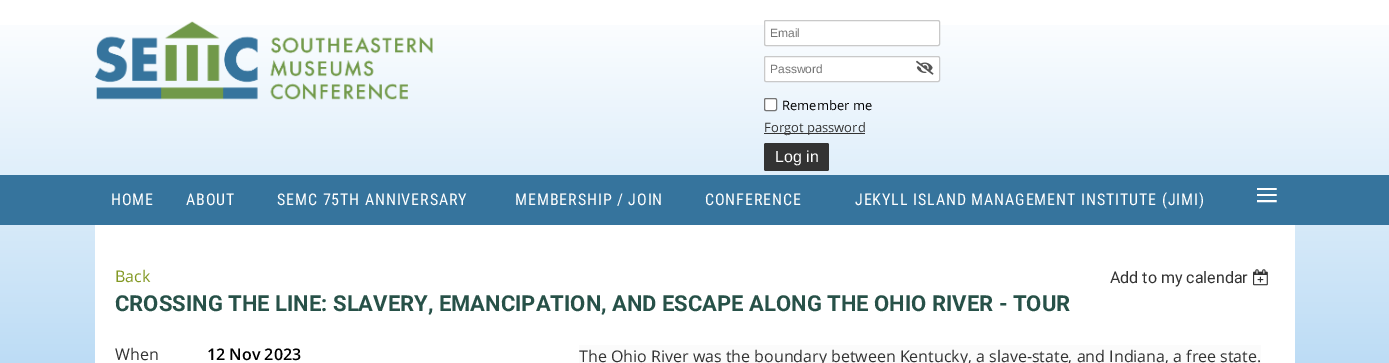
%!PS
<< /PageSize [1389 363] >> setpagedevice
/rgb { 3 { 255 div 3 1 roll } repeat setrgbcolor } def
/font { [ exch dup neg 0 0 3 -1 roll 0 0 ] selectfont } def
/text { moveto show } def
/roundrect { 5 dict begin { /r /h /w /y /x } { exch def } forall
  x r add y moveto x w add y 2 copy h add r arct x w add y h add x 1 index r arct
  x y h add x y r arct x y 2 copy exch w add exch r arct closepath end } def
/picture { 5 dict begin { /h /w /y /x /name } { exch def } forall
  gsave x y translate w h scale
  w h 8 [w 0 0 h 0 0] name (r) file false 3 colorimage grestore end } def
0 363 translate 1 -1 scale
4 setmiterlimit
255 255 255 rgb
0 0 1389 363 rectfill
(img_01.rgb) 0 25 1389 338 picture
(img_02.rgb) 95 21 338 79 picture
764.5 20.5 175 25 1.5 roundrect gsave fill grestore
201 201 201 rgb
stroke
255 255 255 rgb
764.5 56.5 175 25 1.5 roundrect gsave fill grestore
201 201 201 rgb
stroke
(img_03.rgb) 916 60 18 15 picture
255 255 255 rgb
764.5 98.5 12 12 1.5 roundrect gsave fill grestore
118 118 118 rgb
stroke
51 51 51 rgb
764 133 101 1 rectfill
764 143 65 28 2 roundrect fill
54 116 157 rgb
0 175 1389 50 rectfill
255 255 255 rgb
95 225 1200 138 rectfill
(img_04.rgb) 1253 269 15 17 picture
251 251 251 rgb
579 345 682 18 rectfill
/LiberationSans-Regular 12 font
117 117 117 rgb
(Email) 770 37 text
(Password) 770 73 text
/OpenSans-Regular 13 font
0 0 0 rgb
(Remember me) 782 110 text
51 51 51 rgb
(Forgot password) 764 132 text
/LiberationSans-Regular 16 font
255 255 255 rgb
(Log in) 775 162 text
/RobotoCondensed-Regular 16 font
111 205 moveto 0.9 0 (HOME) ashow
186 205 moveto 0.9 0 (ABOUT) ashow
277 205 moveto 0.9 0 (SEMC 75TH ANNIVERSARY) ashow
515 205 moveto 0.9 0 (MEMBERSHIP / JOIN) ashow
705 205 moveto 0.9 0 (CONFERENCE) ashow
855 205 moveto 0.9 0 (JEKYLL ISLAND MANAGEMENT INSTITUTE \(JIMI\)) ashow
/LiberationSerif-Regular 42 font
1255 209 moveto 0.9 0 (≡) ashow
/OpenSans-Regular 16 font
131 153 36 rgb
(Back) 115 282 text
/Roboto-Regular 16 font
51 51 51 rgb
(Add to my calendar) 1110 283 text
/Roboto-Bold 22 font
39 81 72 rgb
(CROSSING THE LINE: SLAVERY, EMANCIPATION, AND ESCAPE ALONG THE OHIO RIVER - TOUR) 115 311 text
/OpenSans-Regular 16 font
51 51 51 rgb
(When) 115 360 text
/OpenSans-SemiBold 16 font
0 0 0 rgb
(12 Nov 2023) 207 360 text
/OpenSans-Regular 16 font
51 51 51 rgb
(The Ohio River was the boundary between Kentucky, a slave-state, and Indiana, a free state.) 579 362 text
showpage
